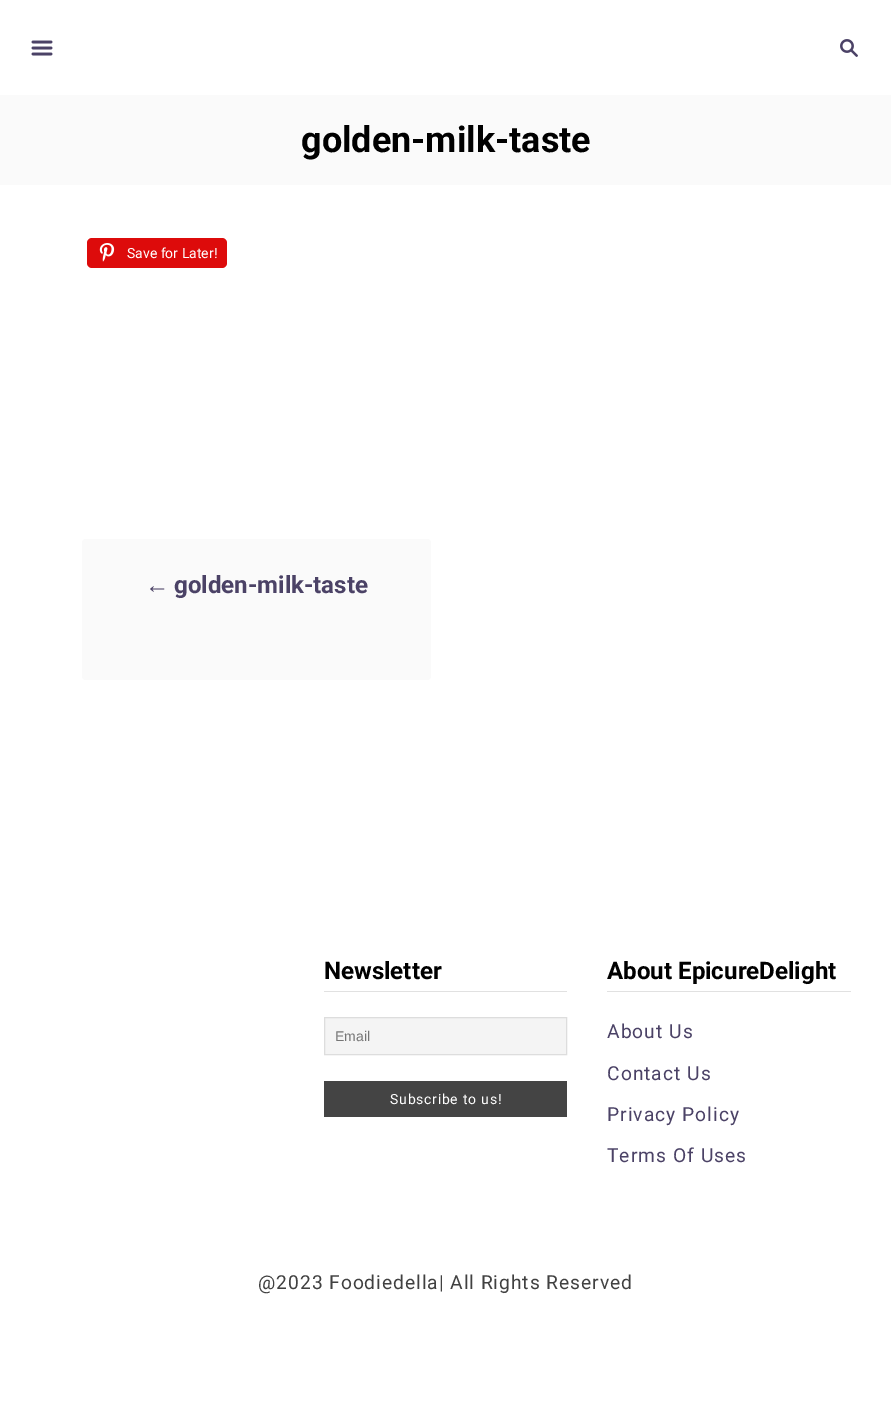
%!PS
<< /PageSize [891 1401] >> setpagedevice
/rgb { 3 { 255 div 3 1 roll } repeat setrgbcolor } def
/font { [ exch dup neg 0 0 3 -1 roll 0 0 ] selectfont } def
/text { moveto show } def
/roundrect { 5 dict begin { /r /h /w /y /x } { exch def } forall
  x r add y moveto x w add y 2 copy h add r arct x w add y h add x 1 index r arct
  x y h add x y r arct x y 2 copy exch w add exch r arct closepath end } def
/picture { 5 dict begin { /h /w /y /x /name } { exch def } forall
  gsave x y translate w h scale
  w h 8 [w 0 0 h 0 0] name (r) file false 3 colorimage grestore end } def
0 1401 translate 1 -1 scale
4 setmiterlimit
255 255 255 rgb
0 0 891 1401 rectfill
(img_01.rgb) 31 40 22 16 picture
(img_02.rgb) 840 39 18 18 picture
250 250 250 rgb
0 95 891 90 rectfill
221 11 11 rgb
87 238 140 30 5 roundrect fill
(img_03.rgb) 99 243 16 19 picture
250 250 250 rgb
82 539 349 141 4 roundrect fill
225 225 225 rgb
324 991 243 1 rectfill
244 244 244 rgb
324.5 1017.5 moveto 242 0 rlineto 0 37 rlineto -242 0 rlineto closepath gsave fill grestore
221 221 221 rgb
stroke
68 68 68 rgb
324 1081 243 36 rectfill
225 225 225 rgb
607 991 244 1 rectfill
/Roboto-Bold 36 font
0 0 0 rgb
(golden-milk-taste) 301 152 text
/Roboto-Regular 14 font
255 255 255 rgb
(Save for Later!) 127 258 text
/LiberationSans-Bold 24.1 font
75 66 102 rgb
(←) 145 593 text
/Roboto-Bold 24.1 font
(golden-milk-taste) 174 593 text
0 0 0 rgb
(Newsletter) 324 979 text
/LiberationSans-Regular 14 font
117 117 117 rgb
(Email) 335 1041 text
/Roboto-Regular 14 font
255 255 255 rgb
390 1104 moveto 0.75 0 (Subscribe to us!) ashow
/Roboto-Bold 24.1 font
0 0 0 rgb
(About EpicureDelight) 607 979 text
/Roboto-Regular 19.25 font
75 66 102 rgb
607 1038 moveto 1 0 (About Us) ashow
607 1080 moveto 1 0 (Contact Us) ashow
607 1121 moveto 1 0 (Privacy Policy) ashow
607 1162 moveto 1 0 (Terms Of Uses) ashow
65 65 65 rgb
258 1289 moveto 0.95 0 (@2023 Foodiedella| All Rights Reserved) ashow
showpage
